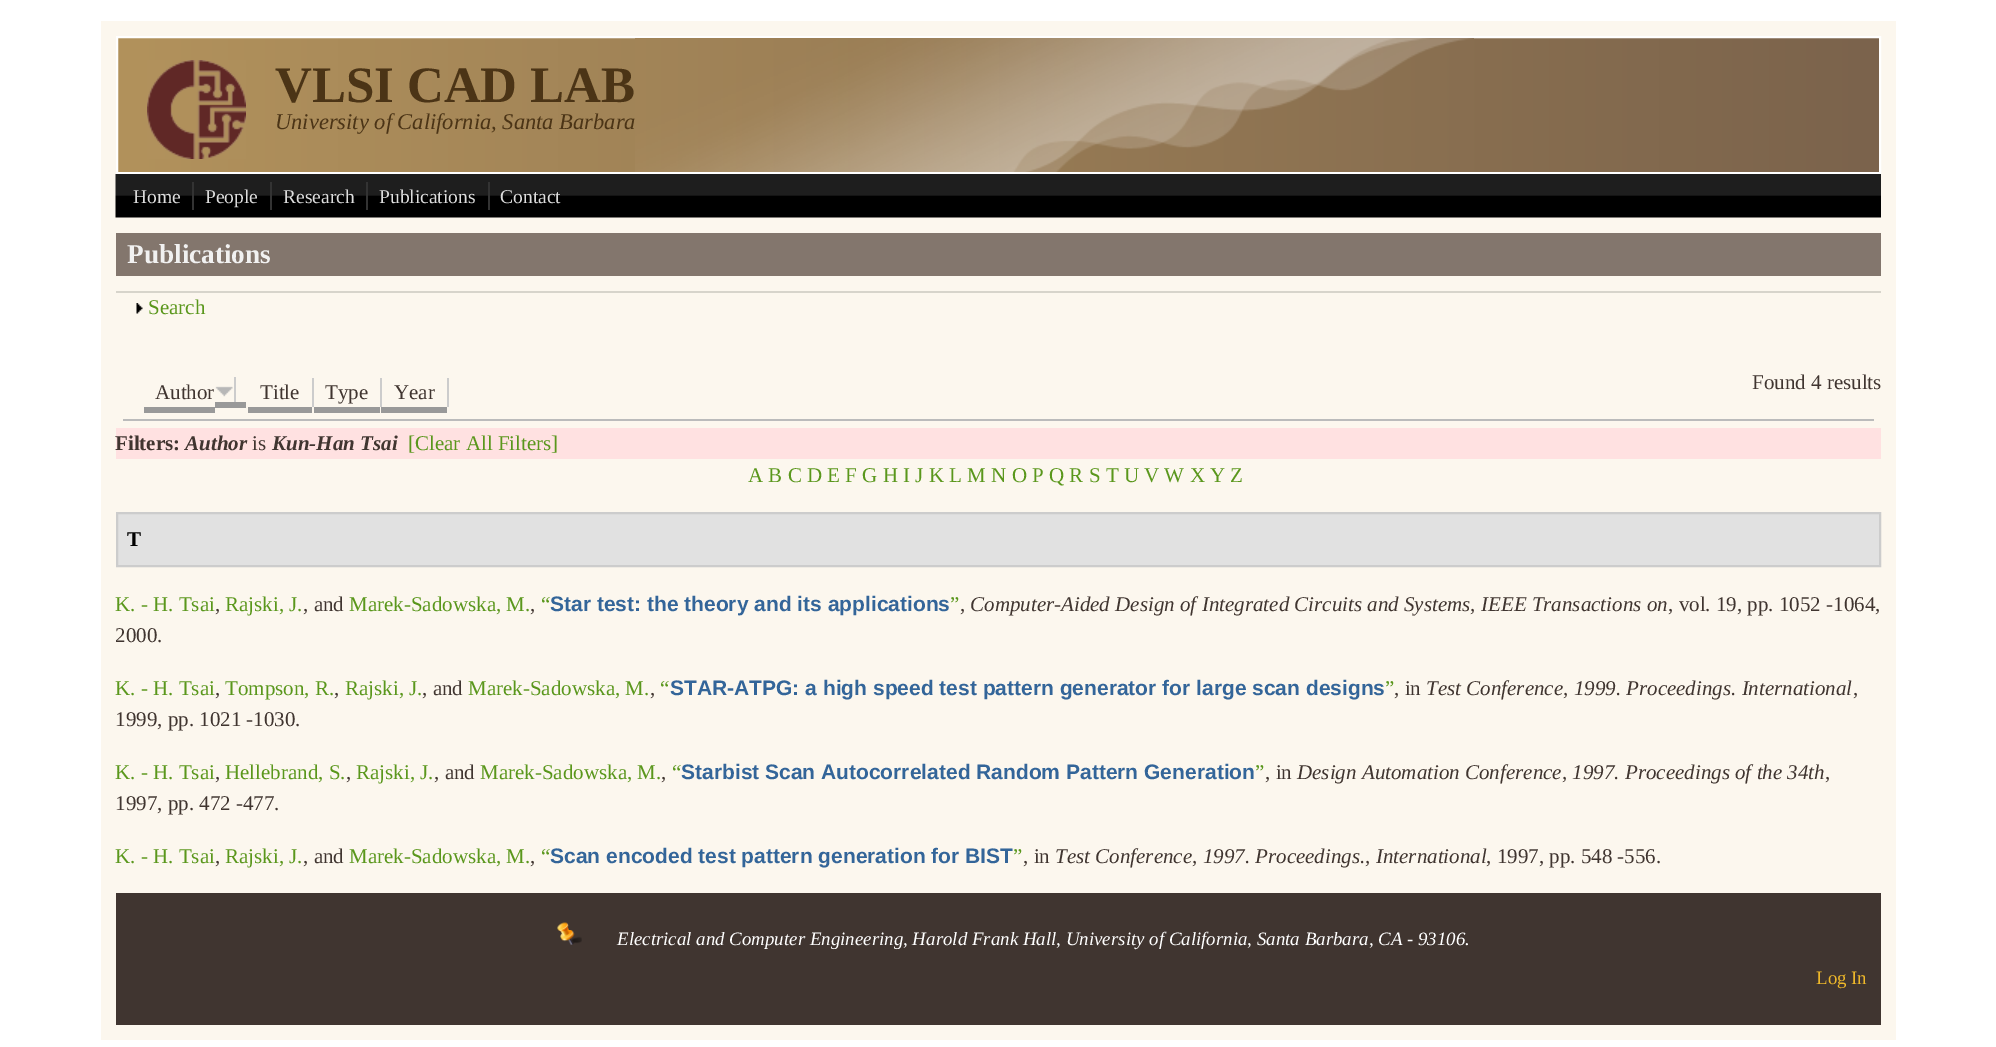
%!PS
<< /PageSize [1996 1047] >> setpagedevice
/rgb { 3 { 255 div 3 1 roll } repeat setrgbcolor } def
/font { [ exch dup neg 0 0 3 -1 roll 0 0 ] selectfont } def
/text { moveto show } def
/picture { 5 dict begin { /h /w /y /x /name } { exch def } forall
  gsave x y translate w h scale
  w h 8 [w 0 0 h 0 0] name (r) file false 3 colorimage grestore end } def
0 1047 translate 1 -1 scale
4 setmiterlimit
255 255 255 rgb
0 0 1996 1047 rectfill
252 247 238 rgb
101 21 1795 1019 rectfill
gsave 118 38 moveto 1761 0 rlineto 0 134 rlineto -1761 0 rlineto closepath clip newpath
<< /ShadingType 2 /ColorSpace /DeviceRGB /Coords [117 38 1880 38] /Extend [true true] /Function << /FunctionType 2 /Domain [0 1] /C0 [0.698 0.573 0.361] /C1 [0.482 0.388 0.298] /N 1 >> >> shfill grestore
255 255 255 rgb
2 setlinewidth
117 37 1763 136 rectstroke
(img_01.rgb) 635 38 839 134 picture
(img_02.rgb) 147 60 99 99 picture
(img_03.rgb) 115 174 1766 44 picture
51 51 51 rgb
192 182 2 28 rectfill
270 182 2 28 rectfill
366 182 2 28 rectfill
488 182 2 28 rectfill
131 118 109 rgb
116 233 1765 43 rectfill
215 212 203 rgb
116 291 1765 2 rectfill
(img_04.rgb) 136 303 7 11 picture
187 187 187 rgb
123 419 1751 2 rectfill
204 204 204 rgb
234 377 2 25 rectfill
153 153 153 rgb
144 407 71 6 rectfill
215 402 31 6 rectfill
(img_05.rgb) 215 386 18 11 picture
204 204 204 rgb
312 378 2 29 rectfill
153 153 153 rgb
248 407 64 6 rectfill
204 204 204 rgb
380 378 2 29 rectfill
153 153 153 rgb
314 407 66 6 rectfill
204 204 204 rgb
447 378 2 29 rectfill
153 153 153 rgb
381 407 66 6 rectfill
255 225 225 rgb
116 428 1765 31 rectfill
225 225 225 rgb
117 513 moveto 1763 0 rlineto 0 53 rlineto -1763 0 rlineto closepath gsave fill grestore
204 204 204 rgb
stroke
64 53 48 rgb
116 893 1765 132 rectfill
(img_06.rgb) 557 922 25 23 picture
/LiberationSerif-Bold 51 font
75 52 22 rgb
(VLSI CAD LAB) 275 102 text
/LiberationSerif-Italic 22.5 font
(University of California, Santa Barbara) 275 129 text
/LiberationSerif-Regular 19.5 font
221 221 221 rgb
(Home) 133 203 text
(People) 205 203 text
(Research) 283 203 text
(Publications) 379 203 text
(Contact) 500 203 text
/LiberationSerif-Bold 27.25 font
241 241 241 rgb
(Publications) 127 263 text
/LiberationSerif-Regular 21 font
90 151 28 rgb
(Search) 148 314 text
64 53 48 rgb
(Found 4 results) 1752 389 text
(Author) 155 399 text
(Title) 260 399 text
(Type) 325 399 text
(Year) 394 399 text
/LiberationSerif-Bold 21 font
(Filters:) 115 450 text
/LiberationSerif-BoldItalic 21 font
(Author) 185 450 text
/LiberationSerif-Regular 21 font
(is) 252 450 text
/LiberationSerif-BoldItalic 21 font
(Kun-Han Tsai) 272 450 text
/LiberationSerif-Regular 21 font
90 151 28 rgb
([Clear All Filters]) 408 450 text
(A B C D E F G H I J K L M N O P Q R S T U V W X Y Z) 748 482 text
/LiberationSerif-Bold 21 font
0 0 0 rgb
(T) 127 546 text
/LiberationSerif-Regular 21 font
90 151 28 rgb
(K. - H. Tsai) 115 611 text
(Rajski, J.) 225 611 text
64 53 48 rgb
(, and) 303 611 text
90 151 28 rgb
(Marek-Sadowska, M.) 349 611 text
(“) 541 611 text
/LiberationSans-Bold 21 font
51 101 153 rgb
(Star test: the theory and its applications) 550 611 text
/LiberationSerif-Regular 21 font
90 151 28 rgb
(”) 950 611 text
/LiberationSerif-Italic 21 font
64 53 48 rgb
(Computer-Aided Design of Integrated Circuits and Systems, IEEE Transactions on) 970 611 text
/LiberationSerif-Regular 21 font
(, vol. 19, pp. 1052 -1064,) 1668 611 text
(,) 215 611 text
(,) 530 611 text
(,) 960 611 text
(2000.) 115 642 text
90 151 28 rgb
(K. - H. Tsai) 115 695 text
64 53 48 rgb
(,) 215 695 text
90 151 28 rgb
(Tompson, R.) 225 695 text
64 53 48 rgb
(,) 334 695 text
90 151 28 rgb
(Rajski, J.) 345 695 text
64 53 48 rgb
(, and) 422 695 text
90 151 28 rgb
(Marek-Sadowska, M.) 468 695 text
64 53 48 rgb
(,) 650 695 text
90 151 28 rgb
(“) 660 695 text
/LiberationSans-Bold 21 font
51 101 153 rgb
(STAR-ATPG: a high speed test pattern generator for large scan designs) 670 695 text
/LiberationSerif-Regular 21 font
90 151 28 rgb
(”) 1385 695 text
64 53 48 rgb
(, in) 1394 695 text
/LiberationSerif-Italic 21 font
(Test Conference, 1999. Proceedings. International) 1426 695 text
/LiberationSerif-Regular 21 font
(,) 1853 695 text
(1999, pp. 1021 -1030.) 115 726 text
90 151 28 rgb
(K. - H. Tsai) 115 779 text
64 53 48 rgb
(,) 215 779 text
90 151 28 rgb
(Hellebrand, S.) 225 779 text
64 53 48 rgb
(,) 346 779 text
90 151 28 rgb
(Rajski, J.) 356 779 text
64 53 48 rgb
(, and) 434 779 text
90 151 28 rgb
(Marek-Sadowska, M.) 480 779 text
64 53 48 rgb
(,) 661 779 text
90 151 28 rgb
(“) 672 779 text
/LiberationSans-Bold 21 font
51 101 153 rgb
(Starbist Scan Autocorrelated Random Pattern Generation) 681 779 text
/LiberationSerif-Regular 21 font
90 151 28 rgb
(”) 1255 779 text
64 53 48 rgb
(, in) 1265 779 text
/LiberationSerif-Italic 21 font
(Design Automation Conference, 1997. Proceedings of the 34th) 1297 779 text
/LiberationSerif-Regular 21 font
(,) 1825 779 text
(1997, pp. 472 -477.) 115 810 text
90 151 28 rgb
(K. - H. Tsai) 115 863 text
64 53 48 rgb
(,) 215 863 text
90 151 28 rgb
(Rajski, J.) 225 863 text
64 53 48 rgb
(, and) 303 863 text
90 151 28 rgb
(Marek-Sadowska, M.) 349 863 text
64 53 48 rgb
(,) 530 863 text
90 151 28 rgb
(“) 541 863 text
/LiberationSans-Bold 21 font
51 101 153 rgb
(Scan encoded test pattern generation for BIST) 550 863 text
/LiberationSerif-Regular 21 font
90 151 28 rgb
(”) 1013 863 text
64 53 48 rgb
(, in) 1023 863 text
/LiberationSerif-Italic 21 font
(Test Conference, 1997. Proceedings., International) 1055 863 text
/LiberationSerif-Regular 21 font
(, 1997, pp. 548 -556.) 1486 863 text
/LiberationSerif-Italic 18.9 font
255 255 255 rgb
(Electrical and Computer Engineering, Harold Frank Hall, University of California, Santa Barbara, CA - 93106.) 617 945 text
/LiberationSerif-Regular 18.9 font
239 184 42 rgb
(Log In) 1816 984 text
showpage
